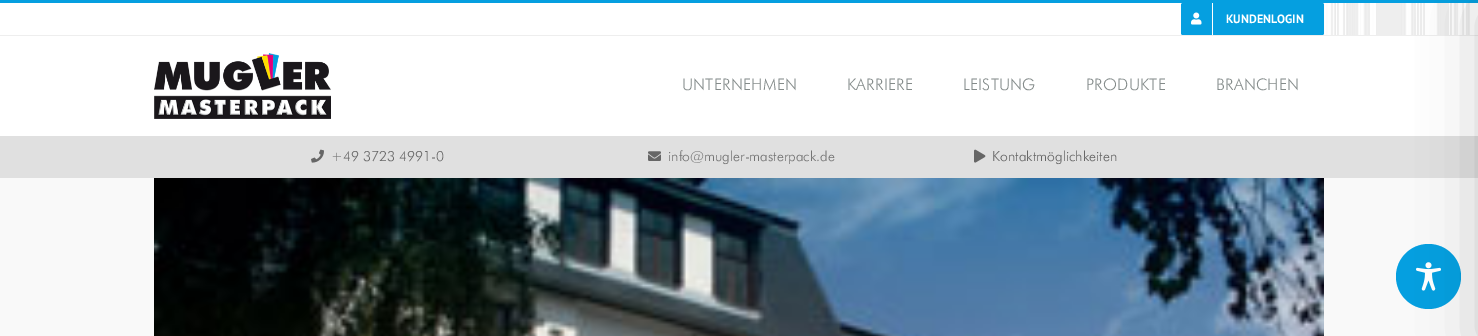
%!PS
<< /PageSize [1478 336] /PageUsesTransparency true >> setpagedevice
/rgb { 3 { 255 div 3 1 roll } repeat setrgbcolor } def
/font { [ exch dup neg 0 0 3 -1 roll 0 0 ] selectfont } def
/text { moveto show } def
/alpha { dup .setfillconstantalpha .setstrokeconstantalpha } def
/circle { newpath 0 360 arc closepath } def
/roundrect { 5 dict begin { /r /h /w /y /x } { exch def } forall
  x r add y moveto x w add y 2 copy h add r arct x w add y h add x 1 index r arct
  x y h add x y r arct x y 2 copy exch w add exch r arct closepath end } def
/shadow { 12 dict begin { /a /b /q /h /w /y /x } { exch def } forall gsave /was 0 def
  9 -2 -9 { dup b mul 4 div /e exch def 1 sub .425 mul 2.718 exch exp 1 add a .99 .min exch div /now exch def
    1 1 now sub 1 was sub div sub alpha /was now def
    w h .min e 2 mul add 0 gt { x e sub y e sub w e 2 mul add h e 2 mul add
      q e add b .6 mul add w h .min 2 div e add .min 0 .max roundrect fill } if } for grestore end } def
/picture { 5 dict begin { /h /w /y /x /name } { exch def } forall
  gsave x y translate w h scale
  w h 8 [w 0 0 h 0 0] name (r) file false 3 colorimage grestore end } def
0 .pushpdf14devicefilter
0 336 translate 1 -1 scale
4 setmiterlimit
249 249 249 rgb
0 0 1478 336 rectfill
255 255 255 rgb
0 3 1478 32 rectfill
(img_01.rgb) 1322 3 148 32 picture
5 159 224 rgb
0 0 1478 3 rectfill
1181 3 143 32 2 roundrect fill
255 255 255 rgb
1212 3 1 32 rectfill
(img_02.rgb) 1191 12 11 13 picture
0 36 1478 100 rectfill
238 238 238 rgb
0 35 1478 1 rectfill
(img_03.rgb) 154 53 177 66 picture
224 224 224 rgb
0 136 1478 42 rectfill
(img_04.rgb) 311 149 13 14 picture
(img_05.rgb) 648 151 13 10 picture
(img_06.rgb) 974 149 12 14 picture
(img_07.rgb) 154 178 1170 158 picture
5 159 224 rgb
1428.5 276.5 32.5 circle fill
(img_08.rgb) 1416 262 25 29 picture
0 0 0 rgb
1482 10 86 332 0 30 0.2 shadow
/PTSans-Bold 12 font
255 255 255 rgb
(KUNDENLOGIN) 1226 23 text
/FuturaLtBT-Light 16 font
132 139 138 rgb
682 90 moveto 0.25 0 (UNTERNEHMEN) ashow
847 90 moveto 0.25 0 (KARRIERE) ashow
963 90 moveto 0.25 0 (LEISTUNG) ashow
1086 90 moveto 0.25 0 (PRODUKTE) ashow
1216 90 moveto 0.25 0 (BRANCHEN) ashow
/FuturaLtBT-Light 14 font
102 102 102 rgb
(+49 3723 4991-0) 331 161 text
116 116 116 rgb
(info@mugler-masterpack.de) 668 161 text
102 102 102 rgb
(Kontaktmöglichkeiten) 992 161 text
.poppdf14devicefilter showpage
